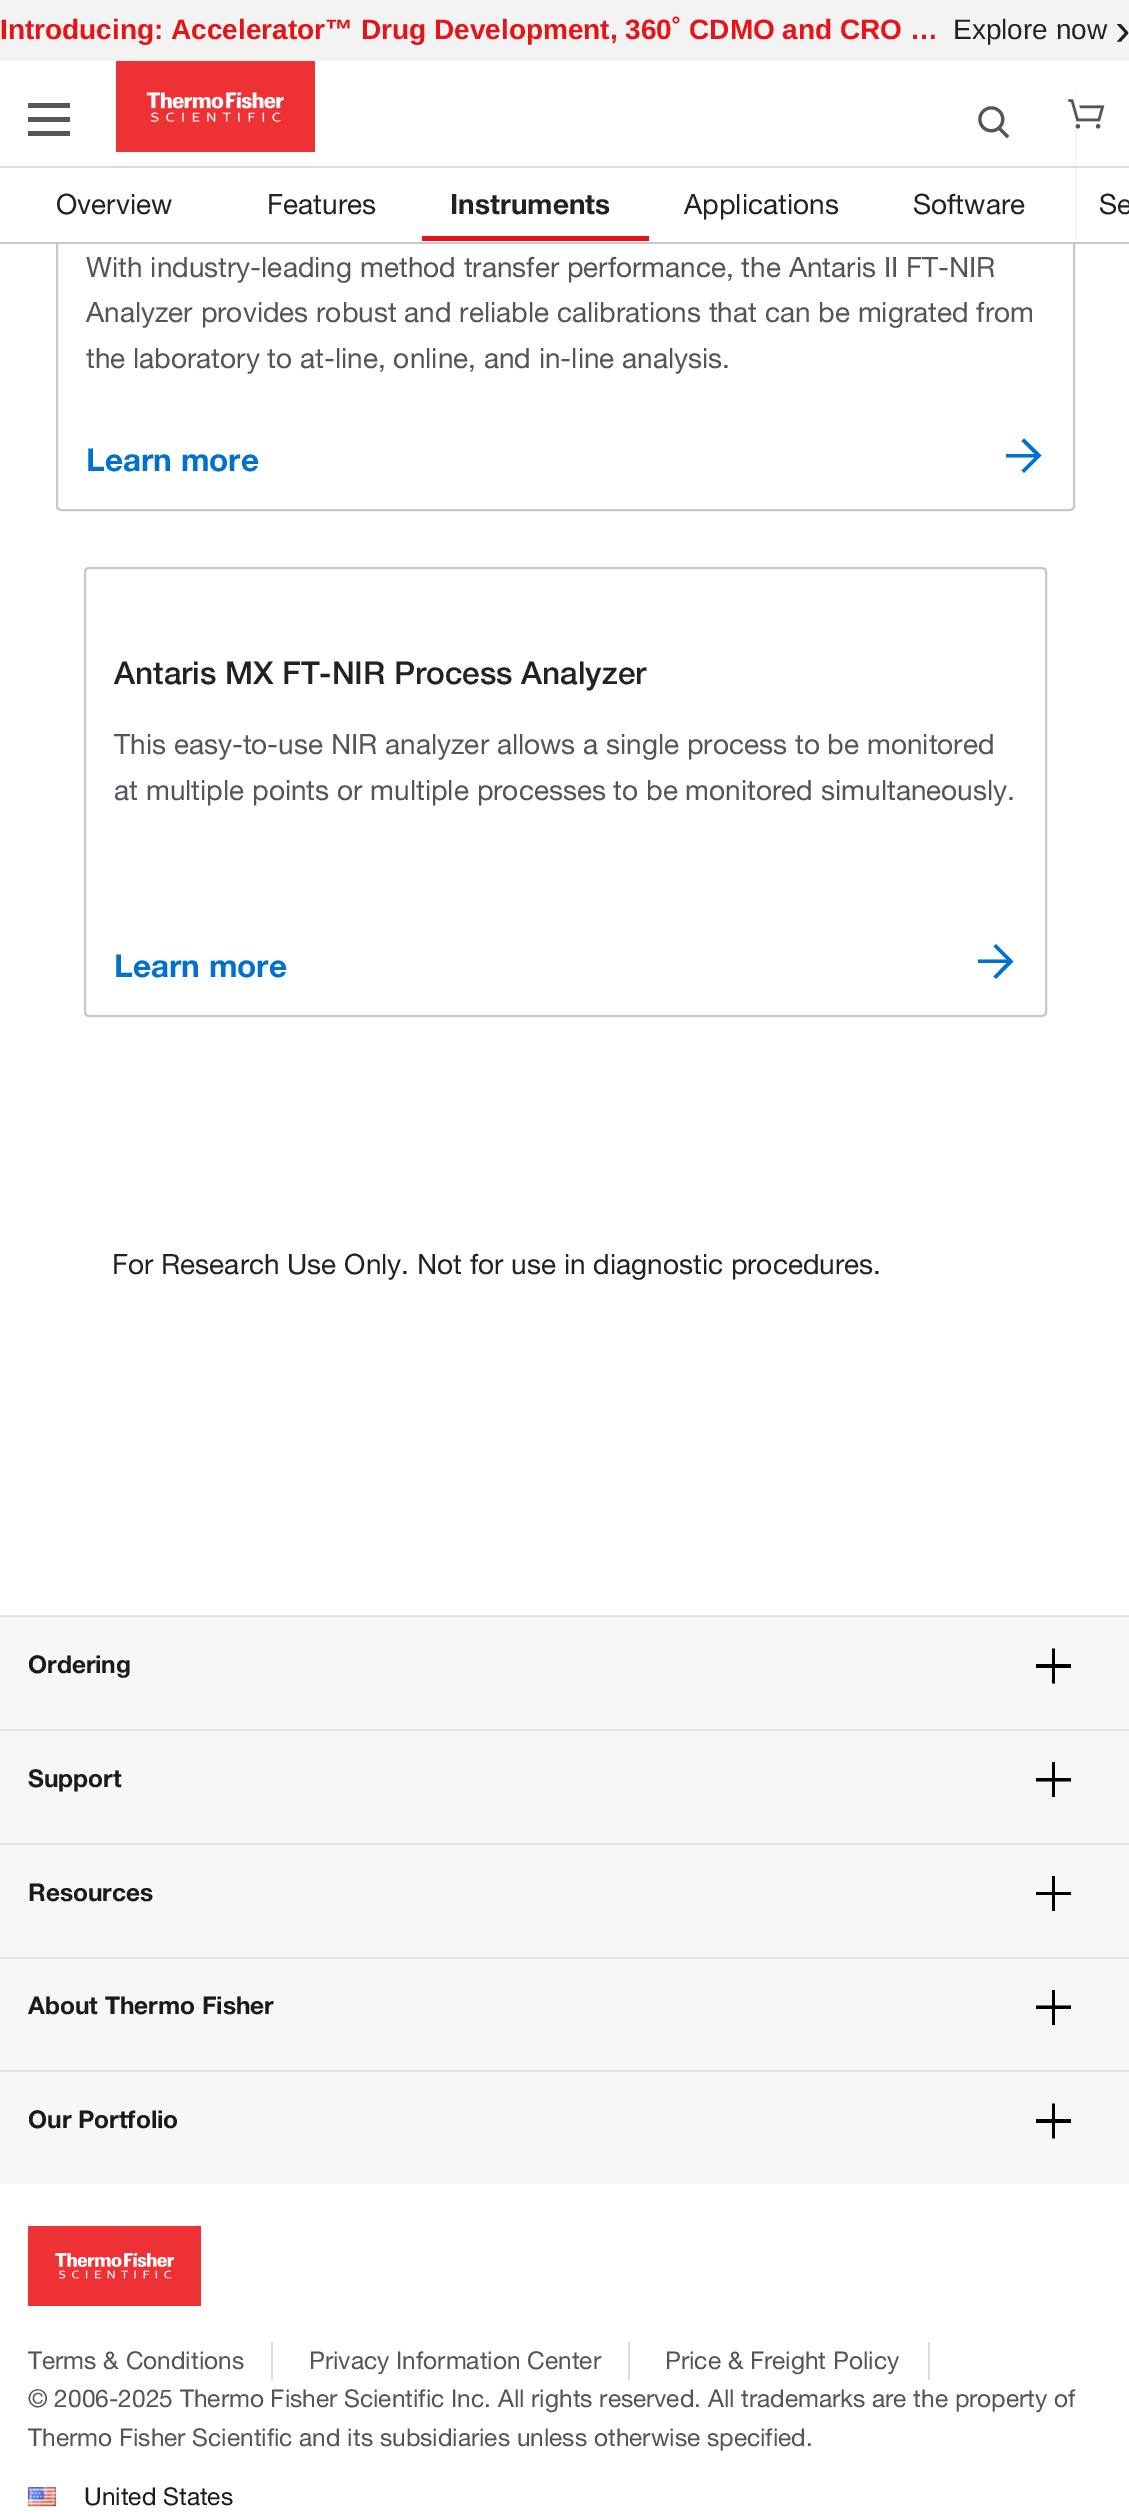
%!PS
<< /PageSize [1129 2515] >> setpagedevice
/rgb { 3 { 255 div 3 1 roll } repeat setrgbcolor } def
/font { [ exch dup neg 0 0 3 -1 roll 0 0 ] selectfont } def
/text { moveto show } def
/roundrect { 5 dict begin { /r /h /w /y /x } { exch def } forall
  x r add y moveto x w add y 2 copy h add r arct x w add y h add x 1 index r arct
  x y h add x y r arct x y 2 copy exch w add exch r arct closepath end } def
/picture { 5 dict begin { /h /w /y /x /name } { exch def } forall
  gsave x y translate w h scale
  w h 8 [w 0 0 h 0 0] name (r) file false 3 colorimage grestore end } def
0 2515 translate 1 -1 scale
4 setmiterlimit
255 255 255 rgb
0 0 1129 2515 rectfill
201 200 200 rgb
2 setlinewidth
57 90 1017 420 4 roundrect stroke
255 255 255 rgb
56 89 1019 77 rectfill
220 220 220 rgb
0 166 1129 2 rectfill
243 243 243 rgb
0 0 1129 61 rectfill
85 87 89 rgb
28 117 42 5 rectfill
28 103 42 5 rectfill
28 131 42 5 rectfill
(img_01.rgb) 116 61 199 91 picture
(img_02.rgb) 978 106 32 33 picture
(img_03.rgb) 1067 99 38 30 picture
255 255 255 rgb
56 168 1019 74 rectfill
201 200 200 rgb
0 242 1129 2 rectfill
231 19 22 rgb
422 236 227 5 rectfill
0 113 208 rgb
1006 454 moveto 28.5 0 rlineto -13 -13 rlineto 2.5 -2.5 rlineto 17.5 17 rlineto -17.5 17.5 rlineto -2.5 -2.5 rlineto 13 -13 rlineto -28.5 0 rlineto closepath fill
201 200 200 rgb
85 568 961 448 4 roundrect stroke
0 113 208 rgb
978 959.5 moveto 28.5 0 rlineto -13 -13 rlineto 2.5 -2.5 rlineto 17.5 17.5 rlineto -17.5 17.5 rlineto -2.5 -2.5 rlineto 13 -13.5 rlineto -28.5 0 rlineto closepath fill
247 247 247 rgb
0 1617 1129 567 rectfill
229 229 229 rgb
0 1615 1129 2 rectfill
0 0 0 rgb
1071 1668 moveto -16 0 rlineto 0 15.5 rlineto -3 0 rlineto 0 -15.5 rlineto -16 0 rlineto 0 -4 rlineto 16 0 rlineto 0 -15.5 rlineto 3 0 rlineto 0 15.5 rlineto 16 0 rlineto closepath fill
229 229 229 rgb
0 1729 1129 2 rectfill
0 0 0 rgb
1071 1781.5 moveto -16 0 rlineto 0 15.5 rlineto -3 0 rlineto 0 -15.5 rlineto -16 0 rlineto 0 -3.5 rlineto 16 0 rlineto 0 -16 rlineto 3 0 rlineto 0 16 rlineto 16 0 rlineto closepath fill
229 229 229 rgb
0 1843 1129 2 rectfill
0 0 0 rgb
1071 1895 moveto -16 0 rlineto 0 16 rlineto -3 0 rlineto 0 -16 rlineto -16 0 rlineto 0 -3 rlineto 16 0 rlineto 0 -16 rlineto 3 0 rlineto 0 16 rlineto 16 0 rlineto closepath fill
229 229 229 rgb
0 1957 1129 2 rectfill
0 0 0 rgb
1071 2009 moveto -16 0 rlineto 0 16 rlineto -3 0 rlineto 0 -16 rlineto -16 0 rlineto 0 -3.5 rlineto 16 0 rlineto 0 -15.5 rlineto 3 0 rlineto 0 15.5 rlineto 16 0 rlineto closepath fill
229 229 229 rgb
0 2070 1129 2 rectfill
0 0 0 rgb
1071 2123 moveto -16 0 rlineto 0 15.5 rlineto -3 0 rlineto 0 -15.5 rlineto -16 0 rlineto 0 -4 rlineto 16 0 rlineto 0 -15.5 rlineto 3 0 rlineto 0 15.5 rlineto 16 0 rlineto closepath fill
(img_04.rgb) 28 2226 173 80 picture
220 220 220 rgb
271 2342 2 38 rectfill
628 2342 2 38 rectfill
928 2342 2 38 rectfill
(img_05.rgb) 28 2487 28 20 picture
/LiberationSans-Bold 28 font
231 19 22 rgb
(Introducing: Accelerator™ Drug Development, 360˚ CDMO and CRO …) 0 39 text
/LiberationSans-Regular 28 font
34 34 34 rgb
(Explore now) 953 39 text
/LiberationSans-Regular 46 font
(›) 1115 45 text
/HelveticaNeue-Regular 28 font
(Overview) 56 214 text
(Features) 267 214 text
/HelveticaNeue-Bold 28 font
(Instruments) 450 214 text
/HelveticaNeue-Regular 28 font
(Applications) 684 214 text
(Software) 913 214 text
(Se) 1099 214 text
84 84 92 rgb
(With industry-leading method transfer performance, the Antaris II FT-NIR) 86 277 text
(Analyzer provides robust and reliable calibrations that can be migrated from) 86 322 text
(the laboratory to at-line, online, and in-line analysis.) 86 368 text
/HelveticaNeue-Bold 31.5 font
0 113 208 rgb
(Learn more) 86 471 text
/HelveticaNeue-Medium 31.5 font
34 34 34 rgb
(Antaris MX FT-NIR Process Analyzer) 114 684 text
/HelveticaNeue-Regular 28 font
84 84 92 rgb
(This easy-to-use NIR analyzer allows a single process to be monitored) 114 754 text
(at multiple points or multiple processes to be monitored simultaneously.) 114 800 text
/HelveticaNeue-Bold 31.5 font
0 113 208 rgb
(Learn more) 114 977 text
/HelveticaNeue-Regular 28 font
34 34 34 rgb
(For Research Use Only. Not for use in diagnostic procedures.) 112 1274 text
/HelveticaNeue-Bold 24.5 font
27 27 29 rgb
(Ordering) 28 1673 text
(Support) 28 1787 text
(Resources) 28 1901 text
(About Thermo Fisher) 28 2014 text
(Our Portfolio) 28 2128 text
/HelveticaNeue-Regular 24.5 font
84 84 92 rgb
(Terms & Conditions) 28 2369 text
(Privacy Information Center) 309 2369 text
(Price & Freight Policy) 665 2369 text
(© 2006-2025 Thermo Fisher Scientific Inc. All rights reserved. All trademarks are the property of) 28 2407 text
(Thermo Fisher Scientific and its subsidiaries unless otherwise specified.) 28 2446 text
27 27 29 rgb
(United States) 84 2505 text
showpage
